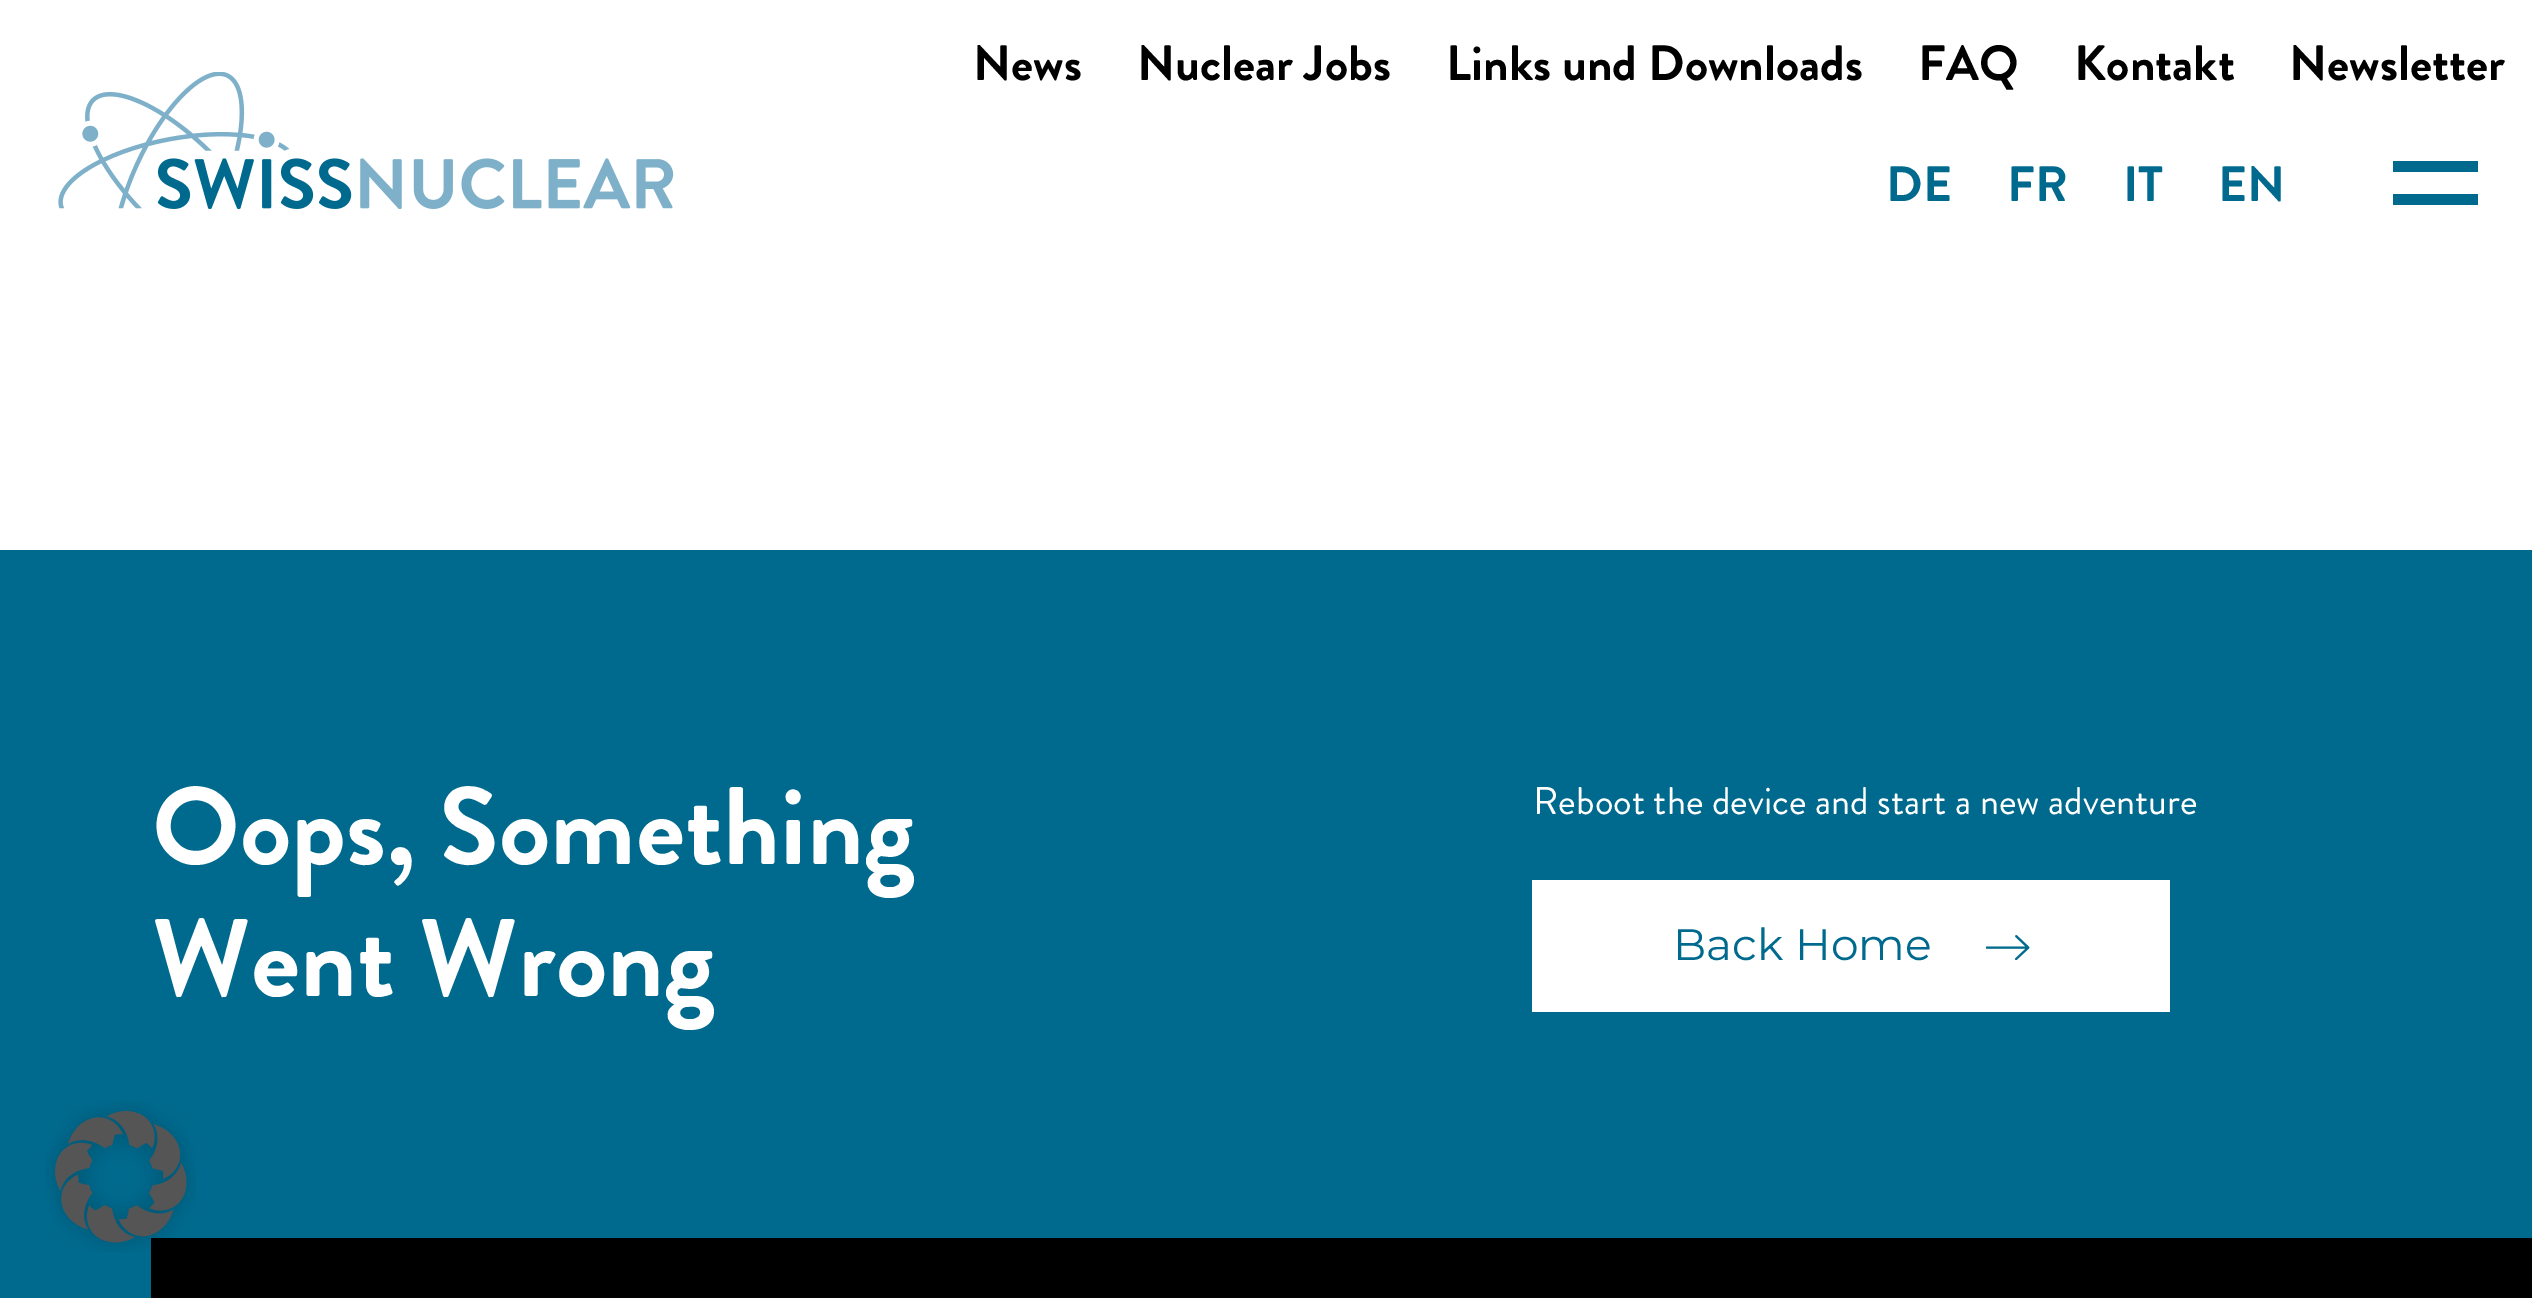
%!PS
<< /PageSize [2532 1298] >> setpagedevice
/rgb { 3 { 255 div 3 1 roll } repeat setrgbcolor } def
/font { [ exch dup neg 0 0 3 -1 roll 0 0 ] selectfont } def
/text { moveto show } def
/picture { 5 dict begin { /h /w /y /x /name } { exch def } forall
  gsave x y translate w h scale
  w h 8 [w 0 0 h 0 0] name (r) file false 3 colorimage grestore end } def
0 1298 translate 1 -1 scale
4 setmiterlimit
255 255 255 rgb
0 0 2532 1298 rectfill
(img_01.rgb) 58 72 616 137 picture
0 106 142 rgb
2393 161 85 11 rectfill
2393 194 85 11 rectfill
0 550 2532 688 rectfill
255 255 255 rgb
1532 880 638 132 rectfill
(img_02.rgb) 1986 935 44 25 picture
0 106 142 rgb
0 1238 151 60 rectfill
0 0 0 rgb
151 1238 2381 60 rectfill
(img_03.rgb) 45 1101 151 151 picture
/BrandonGrotesque-Bold 49.5 font
(News) 973 80 text
(Nuclear Jobs) 1137 80 text
(Links und Downloads) 1446 80 text
(FAQ) 1918 80 text
(Kontakt) 2074 80 text
(Newsletter) 2289 80 text
0 106 142 rgb
(DE) 1886 201 text
(FR) 2007 201 text
(IT) 2123 201 text
(EN) 2218 201 text
/BrandonGrotesque-Bold 110 font
255 255 255 rgb
(Oops, Something) 152 864 text
(Went Wrong) 152 996 text
/BrandonGrotesque-Regular 38.5 font
(Reboot the device and start a new adventure) 1533 814 text
/Montserrat-Regular 44 font
0 106 142 rgb
(Back Home) 1673 960 text
showpage
